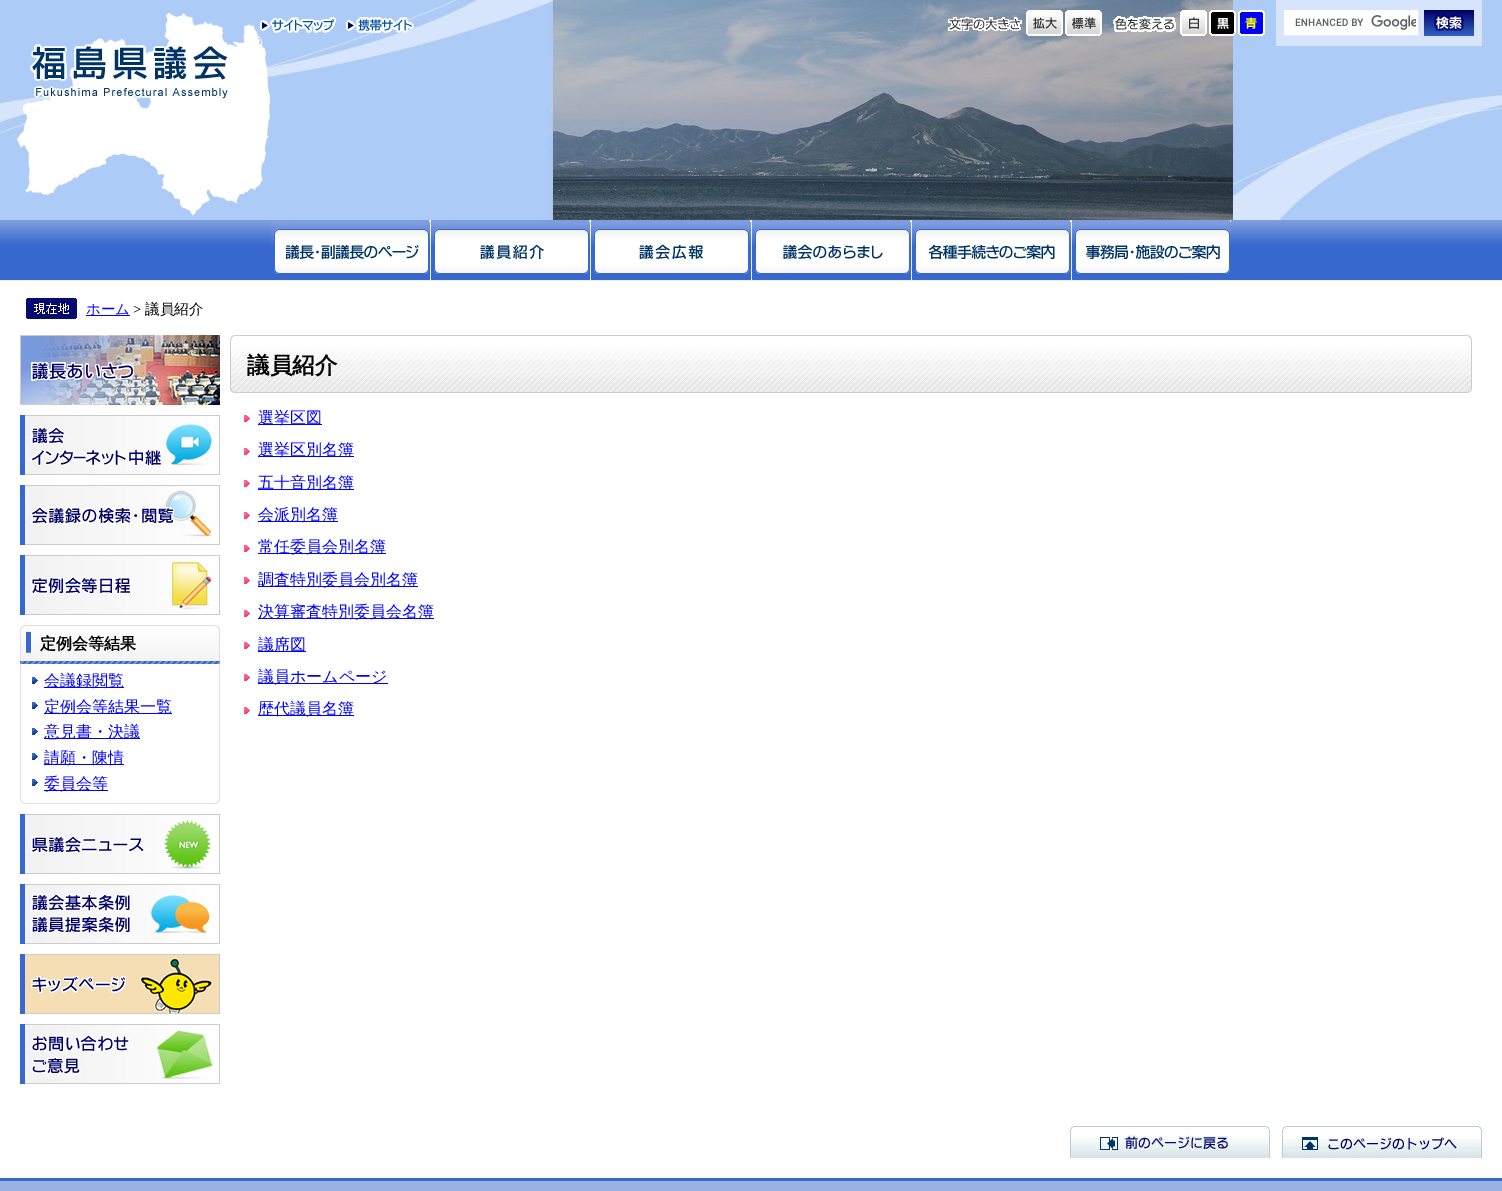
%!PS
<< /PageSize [1502 1191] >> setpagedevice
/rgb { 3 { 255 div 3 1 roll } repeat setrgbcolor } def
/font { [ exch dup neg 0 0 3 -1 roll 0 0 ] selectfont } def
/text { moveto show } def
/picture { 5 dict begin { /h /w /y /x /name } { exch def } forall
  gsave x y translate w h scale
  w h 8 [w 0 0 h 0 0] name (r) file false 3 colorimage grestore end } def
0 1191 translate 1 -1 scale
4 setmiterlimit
255 255 255 rgb
0 0 1502 1191 rectfill
(img_01.rgb) 0 0 1502 220 picture
(img_02.rgb) 17 13 253 202 picture
(img_03.rgb) 260 17 76 16 picture
(img_04.rgb) 260 17 76 16 picture
(img_05.rgb) 346 17 68 16 picture
(img_06.rgb) 346 17 68 16 picture
(img_07.rgb) 948 17 74 14 picture
(img_08.rgb) 1026 10 37 26 picture
(img_09.rgb) 1065 10 37 26 picture
(img_10.rgb) 1113 16 63 16 picture
(img_11.rgb) 1180 10 27 26 picture
(img_12.rgb) 1209 10 27 26 picture
(img_13.rgb) 1238 10 27 26 picture
214 229 251 rgb
1276 0 206 46 rectfill
255 255 255 rgb
1286 12 130 21 rectfill
(img_14.rgb) 1295 15 121 15 picture
2 setlinewidth
1285 11 132 23 rectstroke
(img_15.rgb) 1424 10 50 26 picture
238 238 238 rgb
0 280 1502 1 rectfill
(img_16.rgb) 0 220 1502 60 picture
429 220 1 2 rectfill
(img_17.rgb) 271 222 159 58 picture
589 220 1 2 rectfill
430 220 1 60 rectfill
(img_18.rgb) 431 222 159 58 picture
750 220 1 2 rectfill
590 220 1 60 rectfill
(img_19.rgb) 591 222 160 58 picture
910 220 1 2 rectfill
751 220 1 60 rectfill
(img_20.rgb) 752 222 159 58 picture
1070 220 1 2 rectfill
911 220 1 60 rectfill
(img_21.rgb) 912 222 159 58 picture
1230 220 1 2 rectfill
1071 220 1 60 rectfill
(img_22.rgb) 1072 222 159 58 picture
(img_23.rgb) 26 298 51 21 picture
0 0 255 rgb
86 315 44 1 rectfill
(img_24.rgb) 20 335 200 70 picture
(img_25.rgb) 20 415 200 60 picture
(img_26.rgb) 20 485 200 60 picture
(img_27.rgb) 20 555 200 60 picture
(img_28.rgb) 20 664 200 140 picture
(img_29.rgb) 20 625 200 36 picture
(img_30.rgb) 20 661 200 3 picture
(img_31.rgb) 32 677 6 7 picture
44 687 80 1 rectfill
(img_31.rgb) 32 702 6 7 picture
44 713 128 1 rectfill
(img_31.rgb) 32 728 6 7 picture
44 738 96 1 rectfill
(img_31.rgb) 32 753 6 7 picture
44 764 80 1 rectfill
(img_31.rgb) 32 779 6 7 picture
44 790 64 1 rectfill
(img_32.rgb) 20 814 200 60 picture
(img_33.rgb) 20 884 200 60 picture
(img_34.rgb) 20 954 200 60 picture
(img_35.rgb) 20 1024 200 60 picture
(img_36.rgb) 230 336 1241 57 picture
(img_37.rgb) 1468 340 4 53 picture
(img_38.rgb) 235 335 1237 5 picture
(img_39.rgb) 230 335 5 5 picture
(img_40.rgb) 244 415 6 7 picture
258 424 64 1 rectfill
(img_40.rgb) 244 448 6 7 picture
258 456 96 1 rectfill
(img_40.rgb) 244 480 6 7 picture
258 489 96 1 rectfill
(img_40.rgb) 244 512 6 7 picture
258 521 80 1 rectfill
(img_40.rgb) 244 545 6 7 picture
258 553 128 1 rectfill
(img_40.rgb) 244 577 6 7 picture
258 586 160 1 rectfill
(img_40.rgb) 244 610 6 7 picture
258 618 176 1 rectfill
(img_40.rgb) 244 642 6 7 picture
258 651 48 1 rectfill
(img_40.rgb) 244 674 6 7 picture
258 683 130 1 rectfill
(img_40.rgb) 244 707 6 7 picture
258 715 96 1 rectfill
(img_41.rgb) 1070 1126 200 32 picture
(img_42.rgb) 1124 1134 105 17 picture
(img_43.rgb) 1282 1126 200 32 picture
(img_44.rgb) 1318 1136 139 14 picture
54 104 205 rgb
0 1178 1502 3 rectfill
153 178 228 rgb
0 1181 1502 10 rectfill
/WenQuanYiZenHei-Medium 14.5 font
0 0 255 rgb
(ホーム) 86 314 text
/LiberationSerif-Regular 14.5 font
0 0 0 rgb
(>) 133 314 text
/WenQuanYiZenHei-Medium 14.5 font
(議員紹介) 145 314 text
/WenQuanYiZenHei-Bold 16 font
(定例会等結果) 40 649 text
/WenQuanYiZenHei-Medium 16 font
0 0 255 rgb
(会議録閲覧) 44 686 text
(定例会等結果一覧) 44 712 text
(意見書・決議) 44 737 text
(請願・陳情) 44 763 text
(委員会等) 44 789 text
/WenQuanYiZenHei-Bold 22.5 font
0 0 0 rgb
(議員紹介) 247 373 text
/WenQuanYiZenHei-Medium 16 font
0 0 255 rgb
(選挙区図) 258 423 text
(選挙区別名簿) 258 455 text
(五十音別名簿) 258 488 text
(会派別名簿) 258 520 text
(常任委員会別名簿) 258 552 text
(調査特別委員会別名簿) 258 585 text
(決算審査特別委員会名簿) 258 617 text
(議席図) 258 650 text
(議員ホームページ) 258 682 text
(歴代議員名簿) 258 714 text
showpage
